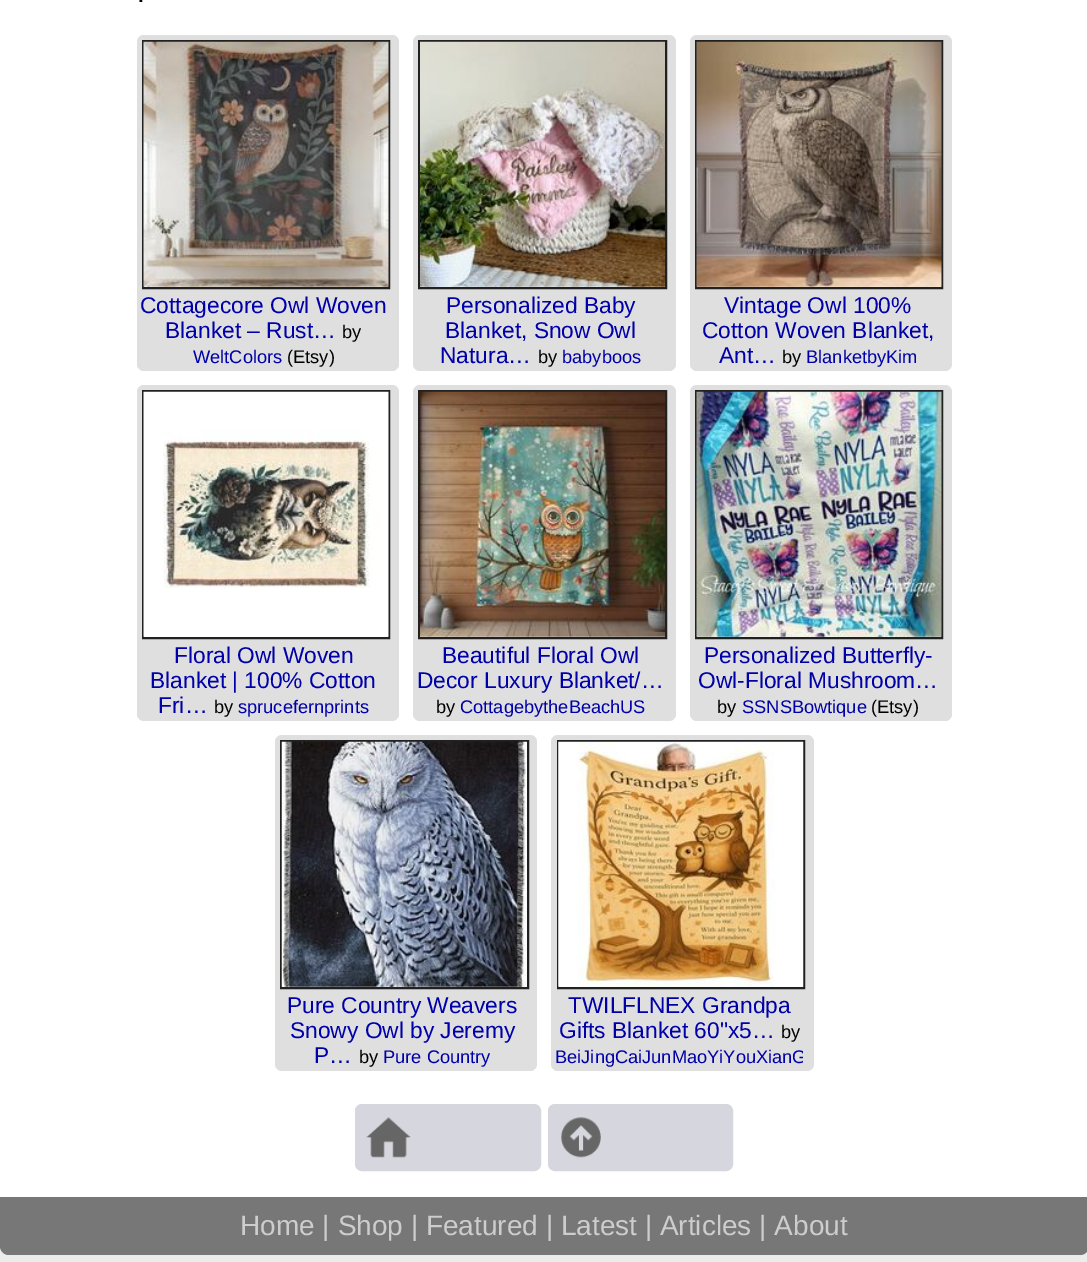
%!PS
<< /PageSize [1087 1262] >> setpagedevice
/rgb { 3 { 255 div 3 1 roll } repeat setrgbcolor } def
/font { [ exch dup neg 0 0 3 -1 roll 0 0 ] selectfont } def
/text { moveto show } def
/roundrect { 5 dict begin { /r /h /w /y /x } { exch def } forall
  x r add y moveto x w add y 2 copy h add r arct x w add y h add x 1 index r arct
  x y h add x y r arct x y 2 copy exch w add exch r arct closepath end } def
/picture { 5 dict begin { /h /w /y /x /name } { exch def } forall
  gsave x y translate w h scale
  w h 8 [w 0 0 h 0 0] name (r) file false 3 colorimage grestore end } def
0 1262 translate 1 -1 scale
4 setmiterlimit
236 236 236 rgb
0 0 1087 1262 rectfill
255 255 255 rgb
0 0 1087 1197 rectfill
223 223 223 rgb
137 35 262 336 7 roundrect fill
33 33 33 rgb
2 setlinewidth
143 41 246 247 rectstroke
(img_01.rgb) 143 41 246 246 picture
223 223 223 rgb
413 35 263 336 7 roundrect fill
33 33 33 rgb
419 41 247 247 rectstroke
(img_02.rgb) 420 41 245 246 picture
223 223 223 rgb
690 35 262 336 7 roundrect fill
33 33 33 rgb
696 41 246 247 rectstroke
(img_03.rgb) 696 41 246 246 picture
223 223 223 rgb
137 385 262 336 7 roundrect fill
33 33 33 rgb
143 391 246 247 rectstroke
(img_04.rgb) 143 391 246 246 picture
223 223 223 rgb
413 385 263 336 7 roundrect fill
33 33 33 rgb
419 391 247 247 rectstroke
(img_05.rgb) 420 391 245 246 picture
223 223 223 rgb
690 385 262 336 7 roundrect fill
33 33 33 rgb
696 391 246 247 rectstroke
(img_06.rgb) 696 391 246 246 picture
223 223 223 rgb
275 735 262 336 7 roundrect fill
250 250 250 rgb
281 741 moveto 247 0 rlineto 0 247 rlineto -247 0 rlineto closepath gsave fill grestore
33 33 33 rgb
stroke
(img_07.rgb) 281 741 246 246 picture
223 223 223 rgb
551 735 263 336 7 roundrect fill
33 33 33 rgb
558 741 246 247 rectstroke
(img_08.rgb) 558 741 246 246 picture
214 214 222 rgb
357 1106 182 63 5 roundrect gsave fill grestore
4 setlinewidth
stroke
(img_09.rgb) 366 1117 45 41 picture
550 1106 181 63 5 roundrect gsave fill grestore
stroke
(img_10.rgb) 561 1117 40 41 picture
119 119 119 rgb
0 1197 moveto 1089 0 rlineto 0 49 rlineto 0 5 -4 9 -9 9 rcurveto -1071 0 rlineto -5 0 -9 -4 -9 -9 rcurveto closepath fill
/LiberationSans-Regular 28 font
0 0 0 rgb
(.) 137 2 text
/LiberationSans-Regular 22.75 font
0 0 170 rgb
(Cottagecore Owl Woven) 140 313 text
(Blanket – Rust…) 165 338 text
/LiberationSans-Regular 18.25 font
0 0 0 rgb
(by) 342 338 text
0 0 170 rgb
(WeltColors) 193 363 text
0 0 0 rgb
(\(Etsy\)) 287 363 text
/LiberationSans-Regular 22.75 font
0 0 170 rgb
(Personalized Baby) 446 313 text
(Blanket, Snow Owl) 445 338 text
(Natura…) 440 363 text
/LiberationSans-Regular 18.25 font
0 0 0 rgb
(by) 538 363 text
0 0 170 rgb
(babyboos) 562 363 text
/LiberationSans-Regular 22.75 font
(Vintage Owl 100%) 724 313 text
(Cotton Woven Blanket,) 702 338 text
(Ant…) 719 363 text
/LiberationSans-Regular 18.25 font
0 0 0 rgb
(by) 782 363 text
0 0 170 rgb
(BlanketbyKim) 806 363 text
/LiberationSans-Regular 22.75 font
(Floral Owl Woven) 174 663 text
(Blanket | 100% Cotton) 150 688 text
(Fri…) 158 713 text
/LiberationSans-Regular 18.25 font
0 0 0 rgb
(by) 214 713 text
0 0 170 rgb
(sprucefernprints) 238 713 text
/LiberationSans-Regular 22.75 font
(Beautiful Floral Owl) 442 663 text
(Decor Luxury Blanket/…) 417 688 text
/LiberationSans-Regular 18.25 font
0 0 0 rgb
(by) 436 713 text
0 0 170 rgb
(CottagebytheBeachUS) 460 713 text
/LiberationSans-Regular 22.75 font
(Personalized Butterfly-) 704 663 text
(Owl-Floral Mushroom…) 698 688 text
/LiberationSans-Regular 18.25 font
0 0 0 rgb
(by) 717 713 text
0 0 170 rgb
(SSNSBowtique) 742 713 text
0 0 0 rgb
(\(Etsy\)) 871 713 text
/LiberationSans-Regular 22.75 font
0 0 170 rgb
(Pure Country Weavers) 287 1013 text
(Snowy Owl by Jeremy) 290 1038 text
(P…) 314 1063 text
/LiberationSans-Regular 18.25 font
0 0 0 rgb
(by) 359 1063 text
0 0 170 rgb
(Pure Country) 383 1063 text
/LiberationSans-Regular 22.75 font
(TWILFLNEX Grandpa) 568 1013 text
(Gifts Blanket 60"x5…) 559 1038 text
/LiberationSans-Regular 18.25 font
0 0 0 rgb
(by) 781 1038 text
gsave
555 994 248 77 rectclip
0 0 170 rgb
(BeiJingCaiJunMaoYiYouXianG) 555 1063 text
grestore
/LiberationSans-Regular 28 font
205 205 205 rgb
(Home | Shop | Featured | Latest | Articles | About) 240 1235 text
showpage
